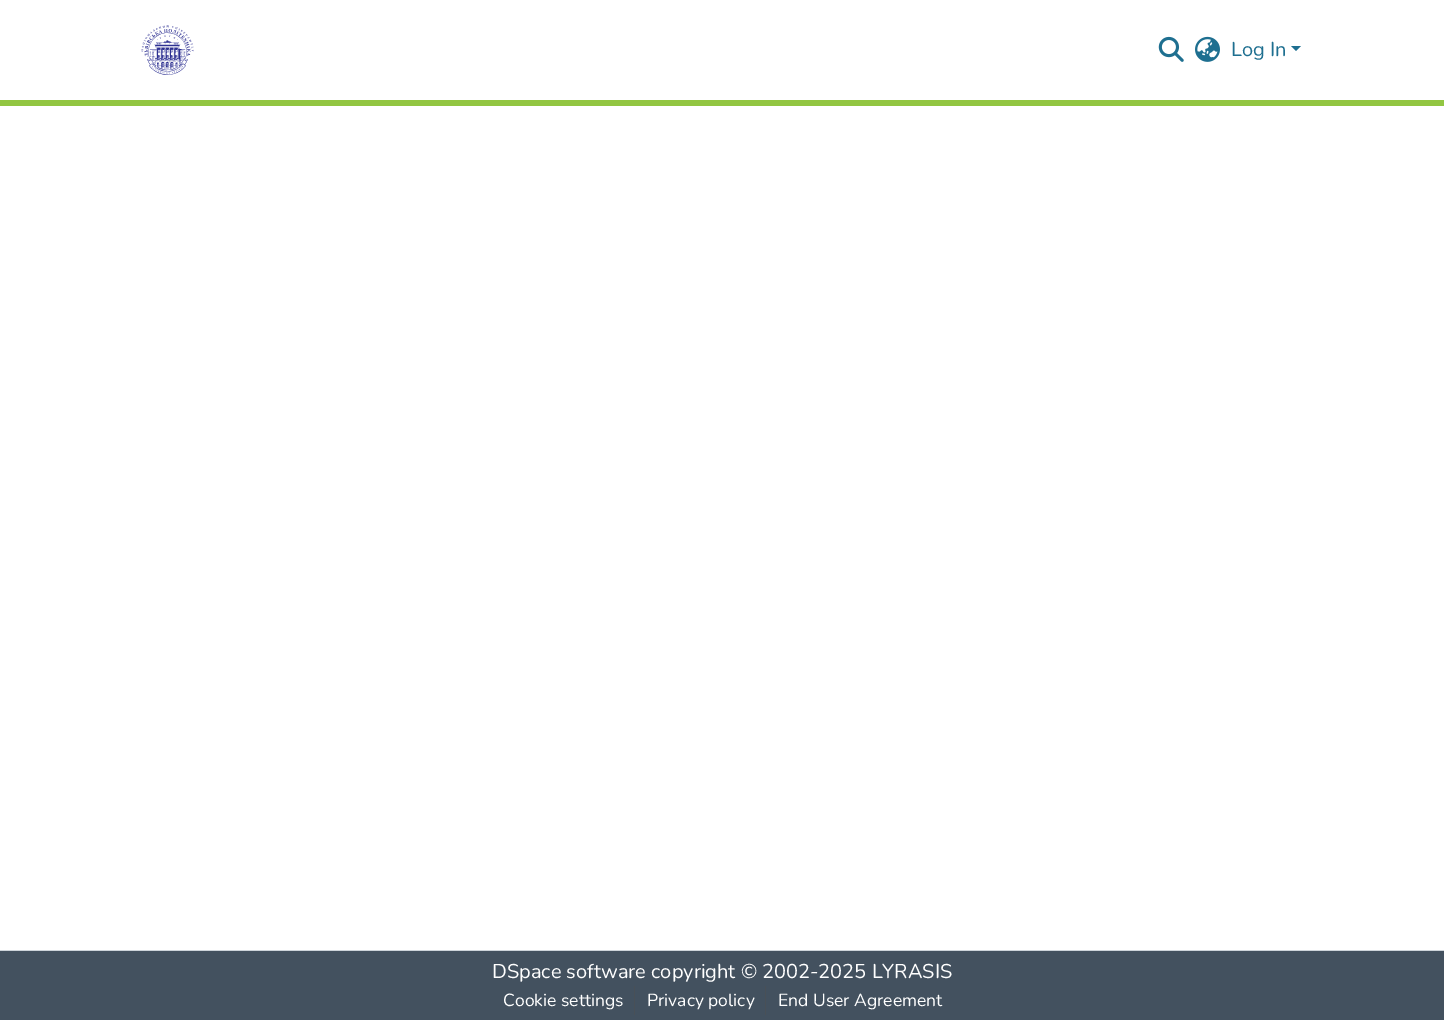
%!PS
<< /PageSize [1444 1020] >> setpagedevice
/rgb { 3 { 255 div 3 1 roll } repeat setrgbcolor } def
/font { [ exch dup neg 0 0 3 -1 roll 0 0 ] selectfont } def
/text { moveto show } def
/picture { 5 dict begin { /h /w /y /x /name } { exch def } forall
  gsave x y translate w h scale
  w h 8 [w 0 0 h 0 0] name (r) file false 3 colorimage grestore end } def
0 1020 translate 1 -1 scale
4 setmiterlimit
255 255 255 rgb
0 0 1444 1020 rectfill
146 198 66 rgb
0 100 1444 6 rectfill
(img_01.rgb) 141 25 53 50 picture
(img_02.rgb) 1158 36 26 26 picture
(img_03.rgb) 1195 36 25 26 picture
30 111 144 rgb
1291 46 moveto 10 0 rlineto -5 5 rlineto closepath fill
67 81 95 rgb
0 951 1444 69 rectfill
206 212 218 rgb
0 950 1444 1 rectfill
73 80 87 rgb
634 986 1 29 rectfill
765 986 1 29 rectfill
/Nunito-Regular 20 font
30 111 144 rgb
(Log In) 1231 56 text
255 255 255 rgb
(DSpace software copyright © 2002-2025 LYRASIS) 492 978 text
/Nunito-Regular 17.5 font
(Cookie settings) 503 1006 text
(Privacy policy) 647 1006 text
(End User Agreement) 778 1006 text
showpage
